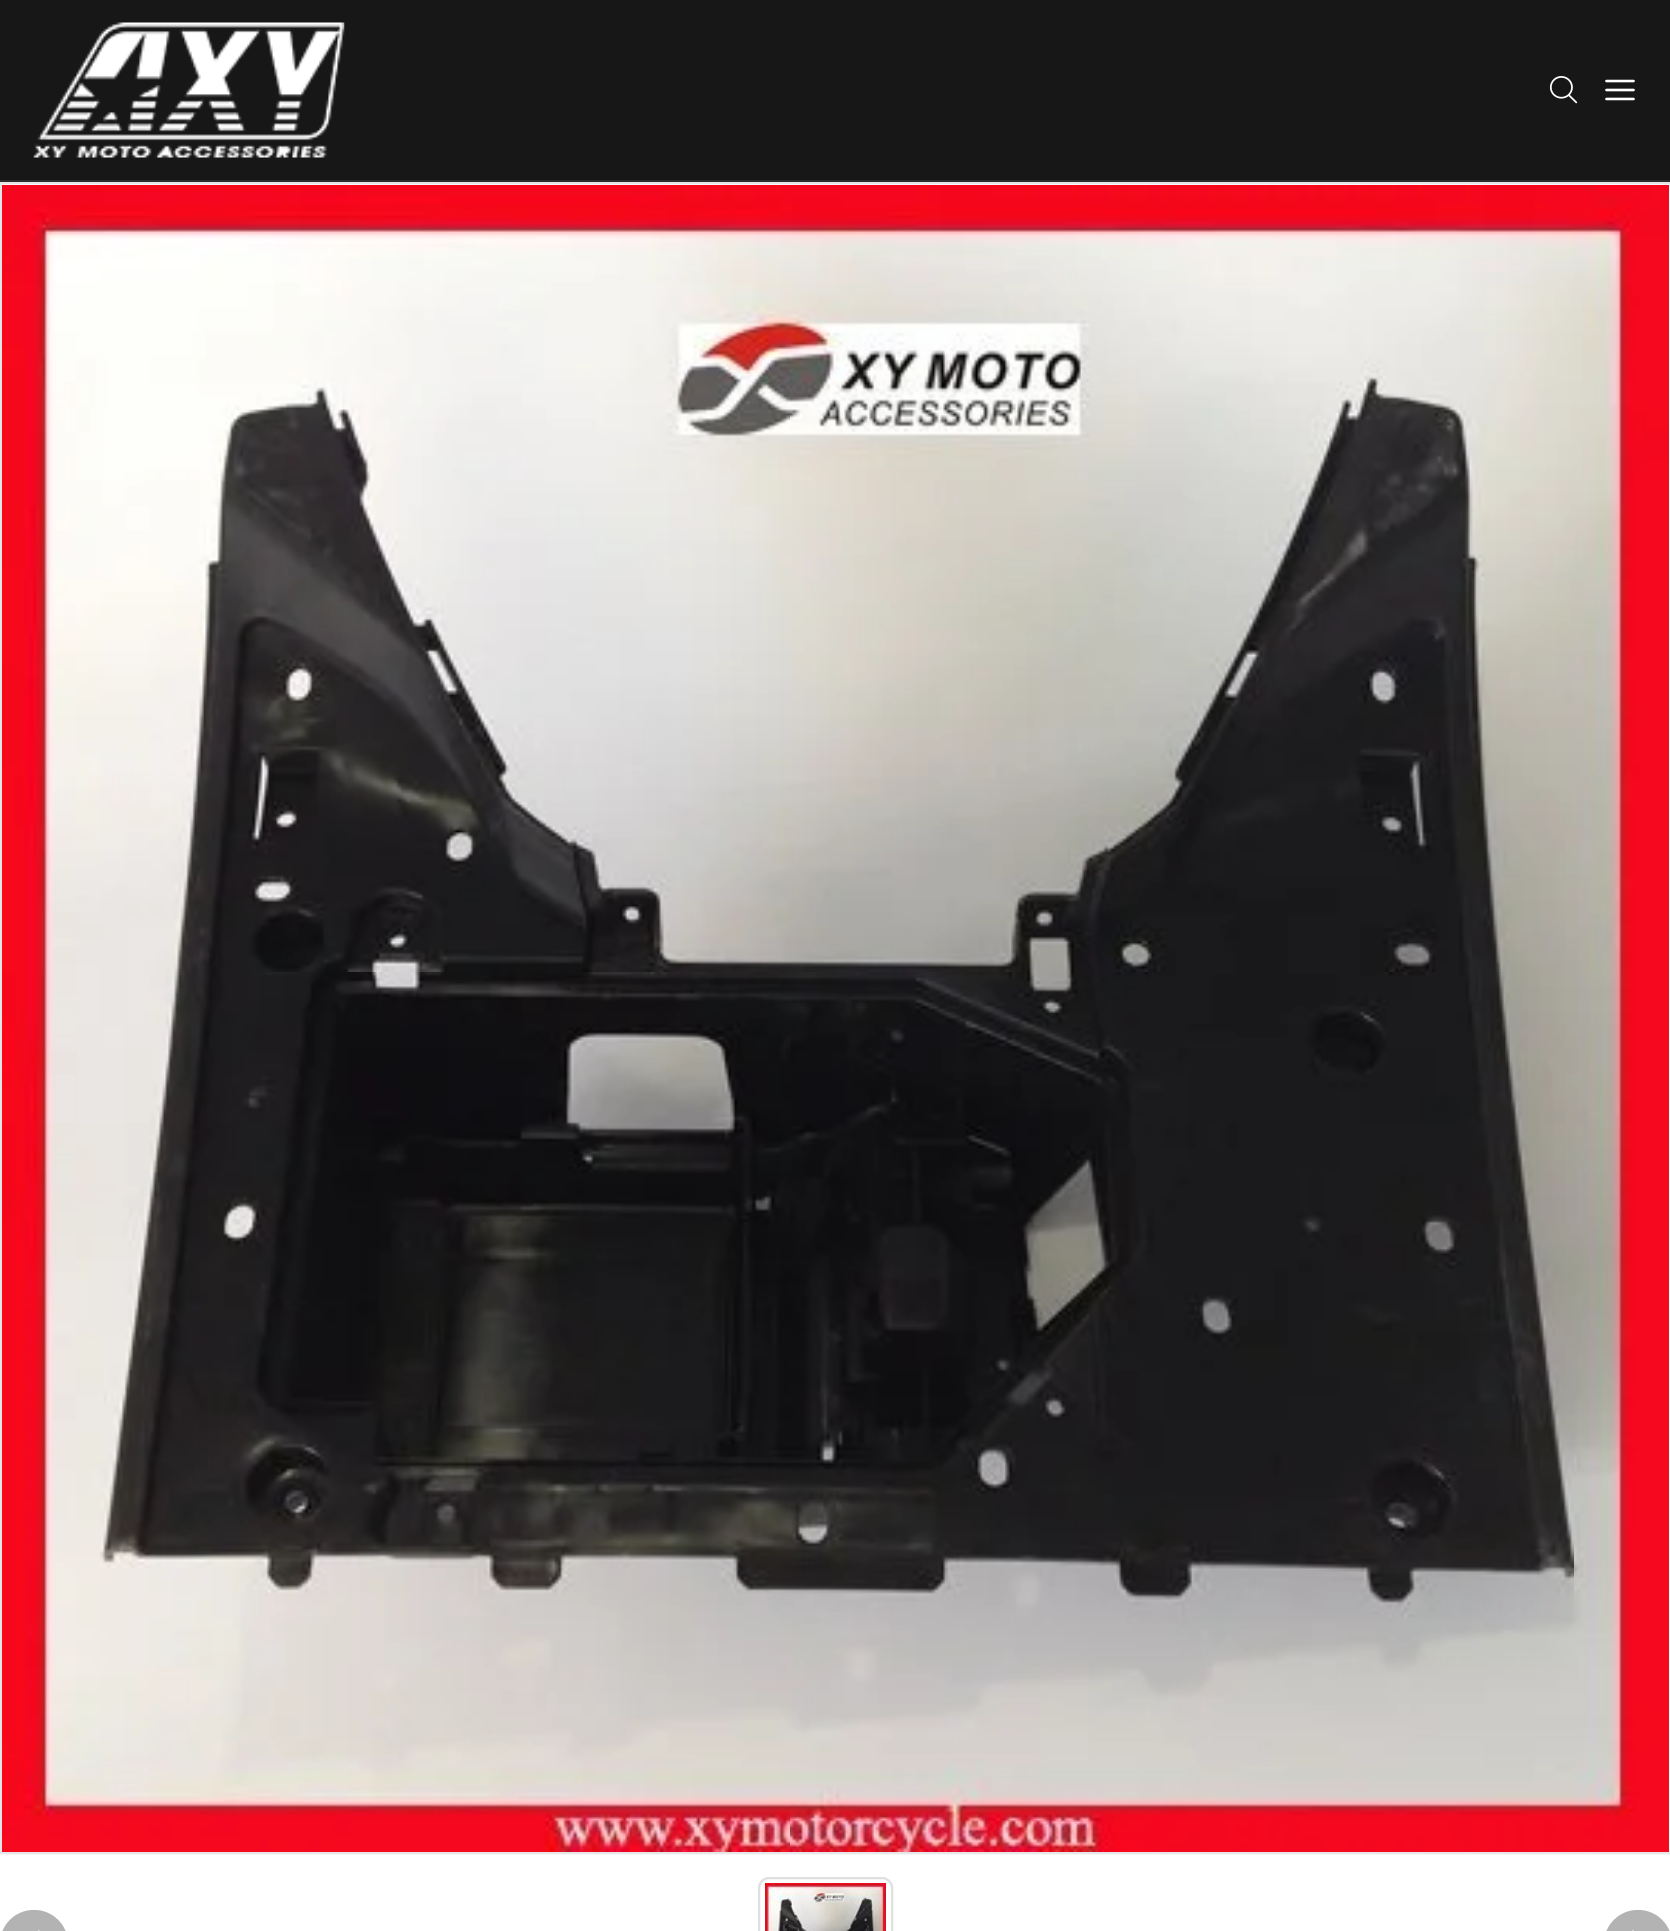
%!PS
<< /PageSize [1670 1931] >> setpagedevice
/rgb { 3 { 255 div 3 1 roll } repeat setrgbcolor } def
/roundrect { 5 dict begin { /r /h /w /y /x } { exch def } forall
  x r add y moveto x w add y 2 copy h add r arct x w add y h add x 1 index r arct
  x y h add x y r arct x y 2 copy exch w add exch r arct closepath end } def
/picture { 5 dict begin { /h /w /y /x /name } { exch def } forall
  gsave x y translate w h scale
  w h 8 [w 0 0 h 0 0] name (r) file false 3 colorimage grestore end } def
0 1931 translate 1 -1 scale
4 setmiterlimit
255 255 255 rgb
0 0 1670 1931 rectfill
23 23 23 rgb
0 0 1670 180 rectfill
45 45 45 rgb
0 180 1670 2 rectfill
(img_01.rgb) 33 22 312 136 picture
(img_02.rgb) 1549 76 29 28 picture
(img_03.rgb) 1605 79 30 22 picture
230 230 230 rgb
2 setlinewidth
1 183 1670 1670 rectstroke
(img_04.rgb) 2 185 1667 1667 picture
223 224 225 rgb
759 1878 133 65 10 roundrect stroke
(img_05.rgb) 765 1883 121 48 picture
179 179 179 rgb
0 1910 68 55 34 roundrect fill
(img_06.rgb) 37 1930 3 1 picture
1604 1910 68 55 34 roundrect fill
(img_07.rgb) 1632 1930 2 1 picture
showpage
